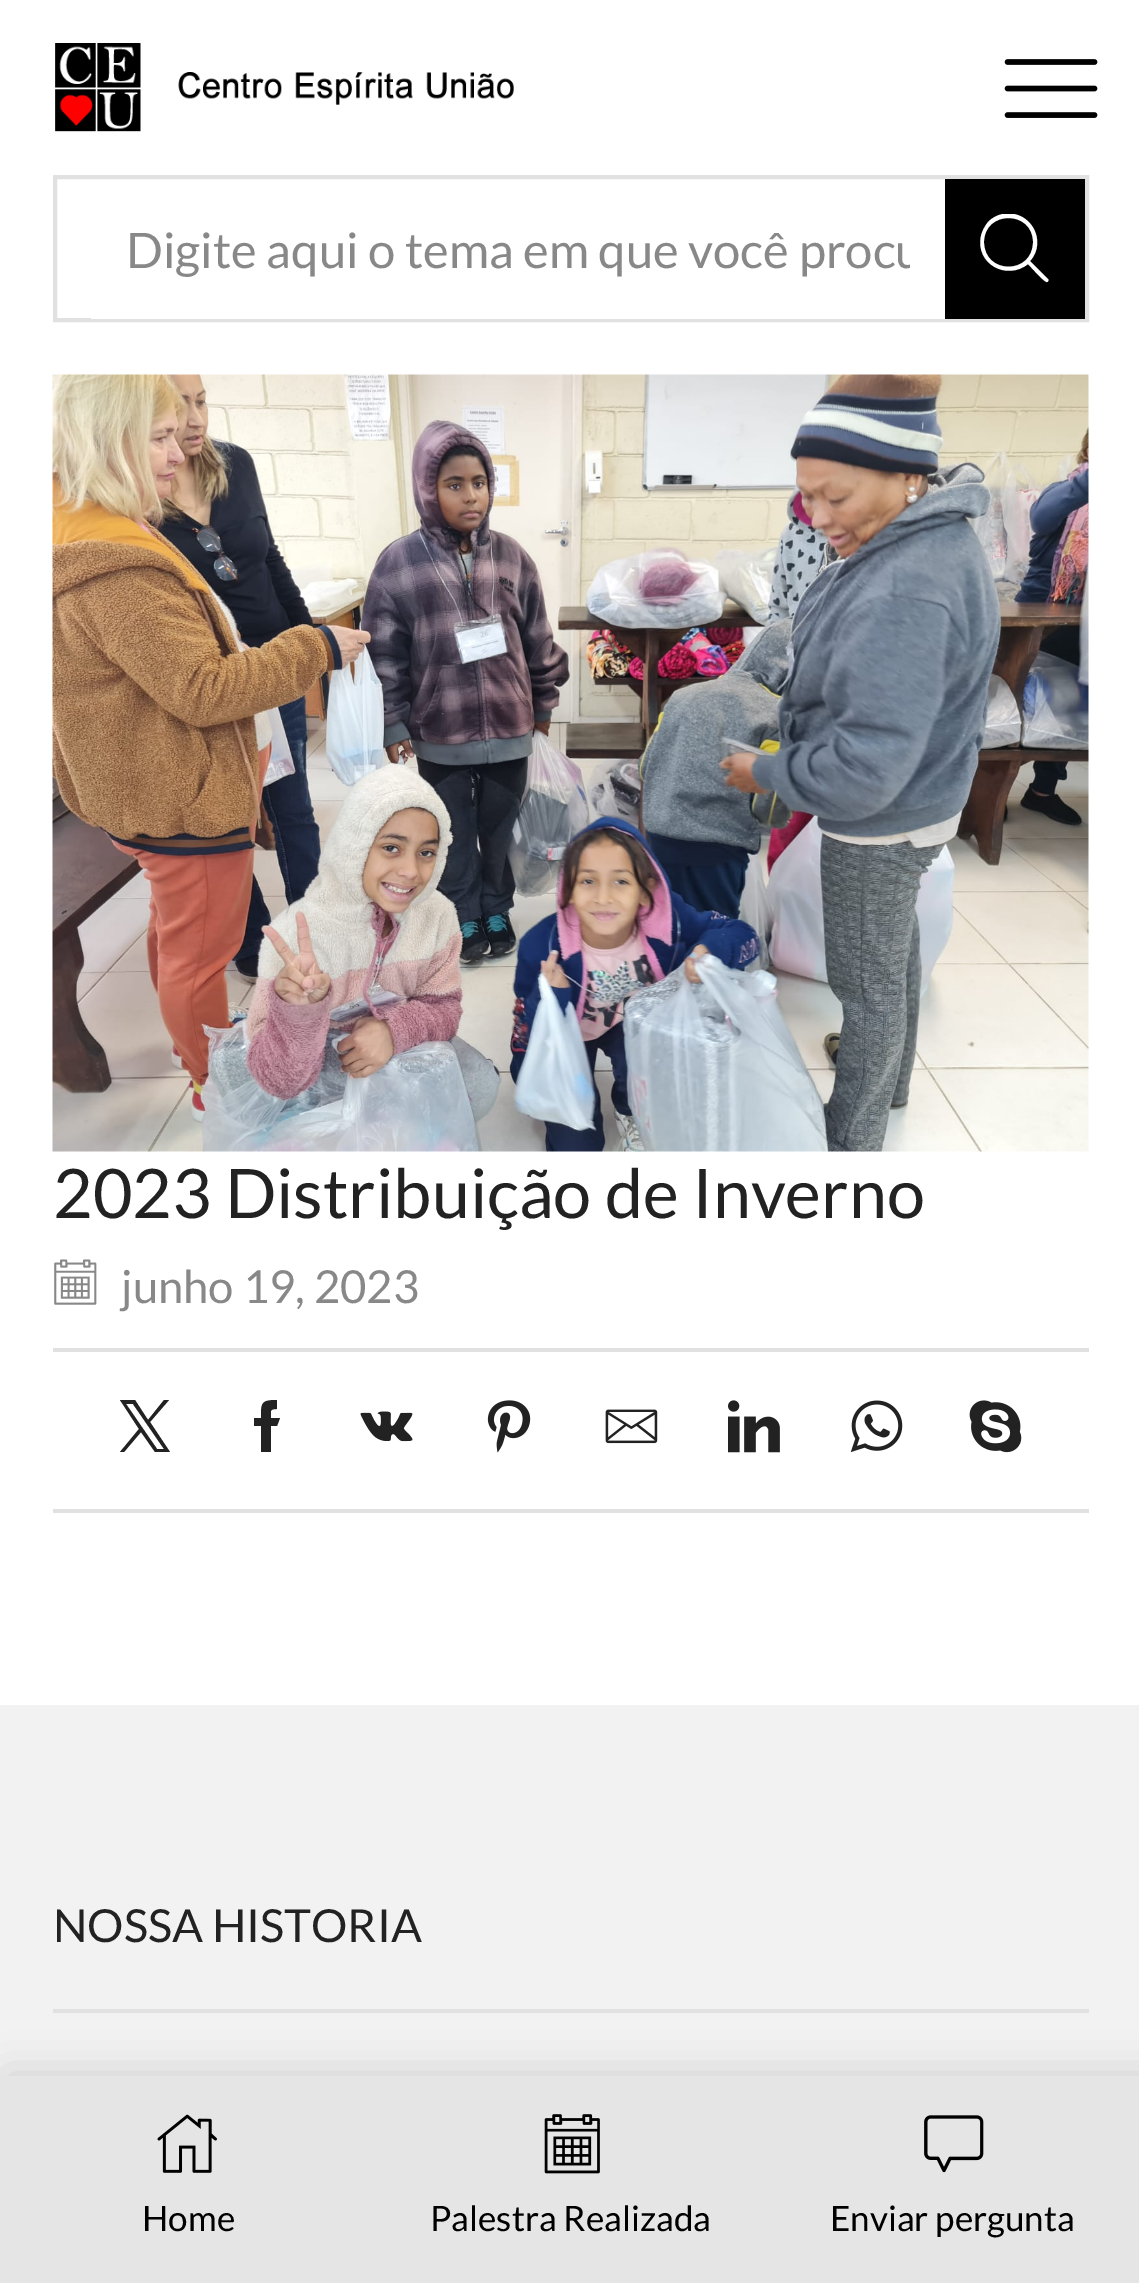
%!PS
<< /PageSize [1139 2283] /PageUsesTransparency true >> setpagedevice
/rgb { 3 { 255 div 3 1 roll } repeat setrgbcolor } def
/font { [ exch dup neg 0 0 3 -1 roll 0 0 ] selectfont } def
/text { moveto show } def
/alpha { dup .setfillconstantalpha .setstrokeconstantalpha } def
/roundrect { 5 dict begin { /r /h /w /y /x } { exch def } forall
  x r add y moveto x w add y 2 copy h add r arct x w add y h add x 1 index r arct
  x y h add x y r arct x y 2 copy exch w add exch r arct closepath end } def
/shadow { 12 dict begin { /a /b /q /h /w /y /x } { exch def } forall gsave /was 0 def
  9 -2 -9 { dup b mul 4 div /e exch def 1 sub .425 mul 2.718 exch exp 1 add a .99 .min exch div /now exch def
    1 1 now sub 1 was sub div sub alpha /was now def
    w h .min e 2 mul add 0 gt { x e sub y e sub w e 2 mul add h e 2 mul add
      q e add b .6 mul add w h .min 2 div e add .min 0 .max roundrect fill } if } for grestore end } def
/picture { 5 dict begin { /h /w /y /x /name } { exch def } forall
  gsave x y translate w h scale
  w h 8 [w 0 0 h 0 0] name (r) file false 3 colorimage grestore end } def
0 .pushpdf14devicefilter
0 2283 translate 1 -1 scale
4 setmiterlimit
255 255 255 rgb
0 0 1139 2283 rectfill
(img_01.rgb) 55 43 459 89 picture
(img_02.rgb) 1004 59 94 59 picture
225 225 225 rgb
4 setlinewidth
55 177 1032 143 rectstroke
255 255 255 rgb
91 318 854 1 rectfill
0 0 0 rgb
945 179 140 140 rectfill
gsave
980 214 70 70 rectclip
255 255 255 rgb
1048 279 moveto -18 -18 rlineto 18 -20 0 -52 -27 -47 rcurveto -6 1 -11 4 -15 8 rcurveto -3 4 -6 9 -7 14 rcurveto -6 28 26 45 47 28 rcurveto 2 2 17 19 19 18 rcurveto 1 0 2 -2 1 -3 rcurveto closepath 1033 242 moveto 0 33 -49 33 -49 0 rcurveto 0 -32 49 -32 49 0 rcurveto closepath fill
grestore
(img_03.rgb) 52 374 1037 778 picture
(img_04.rgb) 54 1259 43 46 picture
225 225 225 rgb
53 1348 1036 4 rectfill
53 1509 1036 4 rectfill
34 34 34 rgb
120 1452 moveto 4 0 rlineto 17 -20 rlineto 14 20 rlineto 15 0 rlineto -20 -30 rlineto 19 -22 rlineto -5 0 rlineto -16 20 rlineto -13 -20 rlineto -15 0 rlineto 19 29 rlineto closepath 126 1404 moveto 7 0 rlineto 31 45 rlineto -7 0 rlineto closepath fill
271 1418 moveto 0 -7 -2 -9 6 -9 rcurveto 0 -9 rlineto -16 0 -16 3 -16 18 rcurveto -7 0 rlineto 0 8 rlineto 7 0 rlineto 0 26 rlineto 10 0 rlineto 0 -26 rlineto 6 0 rlineto 3 -8 rlineto closepath fill
(img_05.rgb) 360 1411 53 31 picture
(img_06.rgb) 487 1400 44 53 picture
(img_07.rgb) 605 1409 53 35 picture
(img_08.rgb) 728 1400 52 53 picture
(img_09.rgb) 850 1400 53 53 picture
(img_10.rgb) 969 1400 53 53 picture
242 242 242 rgb
0 1705 1139 371 rectfill
225 225 225 rgb
53 2009 1036 4 rectfill
0 0 0 rgb
7 2076 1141 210 0 21 0.15 shadow
229 229 229 rgb
0 2076 1139 207 rectfill
(img_11.rgb) 157 2114 60 59 picture
(img_12.rgb) 544 2114 56 60 picture
(img_13.rgb) 924 2115 60 58 picture
gsave
126 221 784 59 rectclip
/Lato-Regular 49 font
136 136 136 rgb
(Digite aqui o tema em que você procu) 126 268 text
grestore
/Lato-Regular 68.25 font
34 34 34 rgb
(2023 Distribuição de Inverno) 53 1218 text
/Lato-Regular 45.5 font
136 136 136 rgb
(junho 19, 2023) 121 1303 text
34 34 34 rgb
(NOSSA HISTORIA) 53 1942 text
/Lato-Regular 35 font
0 0 0 rgb
(Home) 142 2231 text
(Palestra Realizada) 430 2231 text
(Enviar pergunta) 830 2231 text
.poppdf14devicefilter showpage
